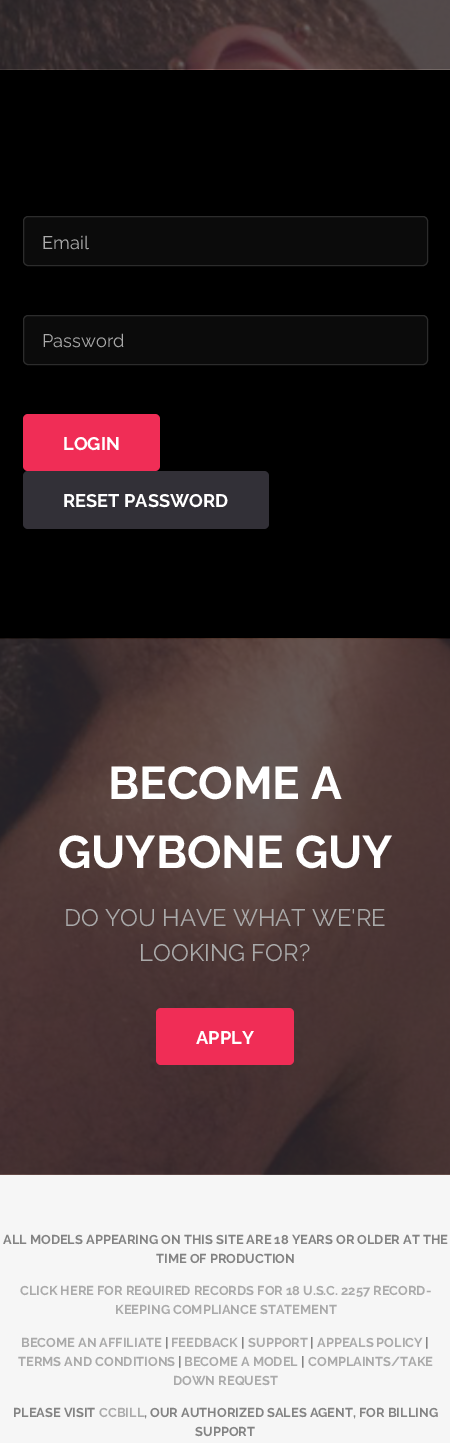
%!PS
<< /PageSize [450 1443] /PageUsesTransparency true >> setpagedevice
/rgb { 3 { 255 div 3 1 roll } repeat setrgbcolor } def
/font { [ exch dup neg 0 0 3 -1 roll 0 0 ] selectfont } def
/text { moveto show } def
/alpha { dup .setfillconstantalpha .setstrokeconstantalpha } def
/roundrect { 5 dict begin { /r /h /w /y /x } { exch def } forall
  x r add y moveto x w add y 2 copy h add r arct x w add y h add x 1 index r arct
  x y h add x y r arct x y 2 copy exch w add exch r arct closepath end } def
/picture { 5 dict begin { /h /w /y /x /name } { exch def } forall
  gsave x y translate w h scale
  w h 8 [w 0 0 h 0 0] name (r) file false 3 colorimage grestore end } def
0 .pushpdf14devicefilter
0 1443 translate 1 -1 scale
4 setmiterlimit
255 255 255 rgb
0 0 450 1443 rectfill
(img_01.rgb) 0 0 450 70 picture
0 0 0 rgb
0 70 450 569 rectfill
11 11 11 rgb
23 216 405 50 5 roundrect fill
0.25 alpha
144 144 144 rgb
23.5 216.5 404 49 4.5 roundrect stroke
1 alpha
11 11 11 rgb
23 315 405 50 5 roundrect fill
0.25 alpha
144 144 144 rgb
23.5 315.5 404 49 4.5 roundrect stroke
1 alpha
240 45 86 rgb
23 414 137 57 5 roundrect fill
50 48 55 rgb
23 471 246 58 5 roundrect fill
(img_02.rgb) 0 638 450 537 picture
240 45 86 rgb
156 1008 138 57 5 roundrect fill
246 246 246 rgb
0 1175 450 268 rectfill
/Raleway-Regular 18.25 font
170 170 170 rgb
(Email) 42 249 text
(Password) 42 347 text
/Raleway-Bold 18.25 font
255 255 255 rgb
(LOGIN) 63 450 text
(RESET PASSWORD) 63 507 text
/Raleway-Bold 45.75 font
(BECOME A) 108 799 text
(GUYBONE GUY) 58 868 text
/Raleway-Regular 23.8 font
170 170 170 rgb
(DO YOU HAVE WHAT WE'RE) 64 926 text
(LOOKING FOR?) 139 961 text
/Raleway-Bold 18.25 font
255 255 255 rgb
(APPLY) 196 1044 text
/Raleway-Bold 12.85 font
131 131 131 rgb
(ALL MODELS APPEARING ON THIS SITE ARE 18 YEARS OR OLDER AT THE) 3 1244 text
(TIME OF PRODUCTION) 156 1263 text
170 170 170 rgb
(CLICK HERE FOR REQUIRED RECORDS FOR 18 U.S.C. 2257 RECORD-) 20 1295 text
(KEEPING COMPLIANCE STATEMENT) 115 1314 text
(BECOME AN AFFILIATE) 21 1347 text
131 131 131 rgb
(|) 165 1347 text
170 170 170 rgb
(FEEDBACK) 171 1347 text
131 131 131 rgb
(|) 241 1347 text
170 170 170 rgb
(SUPPORT) 248 1347 text
131 131 131 rgb
(|) 310 1347 text
170 170 170 rgb
(APPEALS POLICY) 317 1347 text
131 131 131 rgb
(|) 425 1347 text
170 170 170 rgb
(TERMS AND CONDITIONS) 18 1366 text
131 131 131 rgb
(|) 178 1366 text
170 170 170 rgb
(BECOME A MODEL) 184 1366 text
131 131 131 rgb
(|) 301 1366 text
170 170 170 rgb
(COMPLAINTS/TAKE) 308 1366 text
(DOWN REQUEST) 173 1385 text
131 131 131 rgb
(PLEASE VISIT) 13 1417 text
170 170 170 rgb
(CCBILL) 99 1417 text
131 131 131 rgb
(, OUR AUTHORIZED SALES AGENT, FOR BILLING) 144 1417 text
(SUPPORT) 195 1436 text
.poppdf14devicefilter showpage
